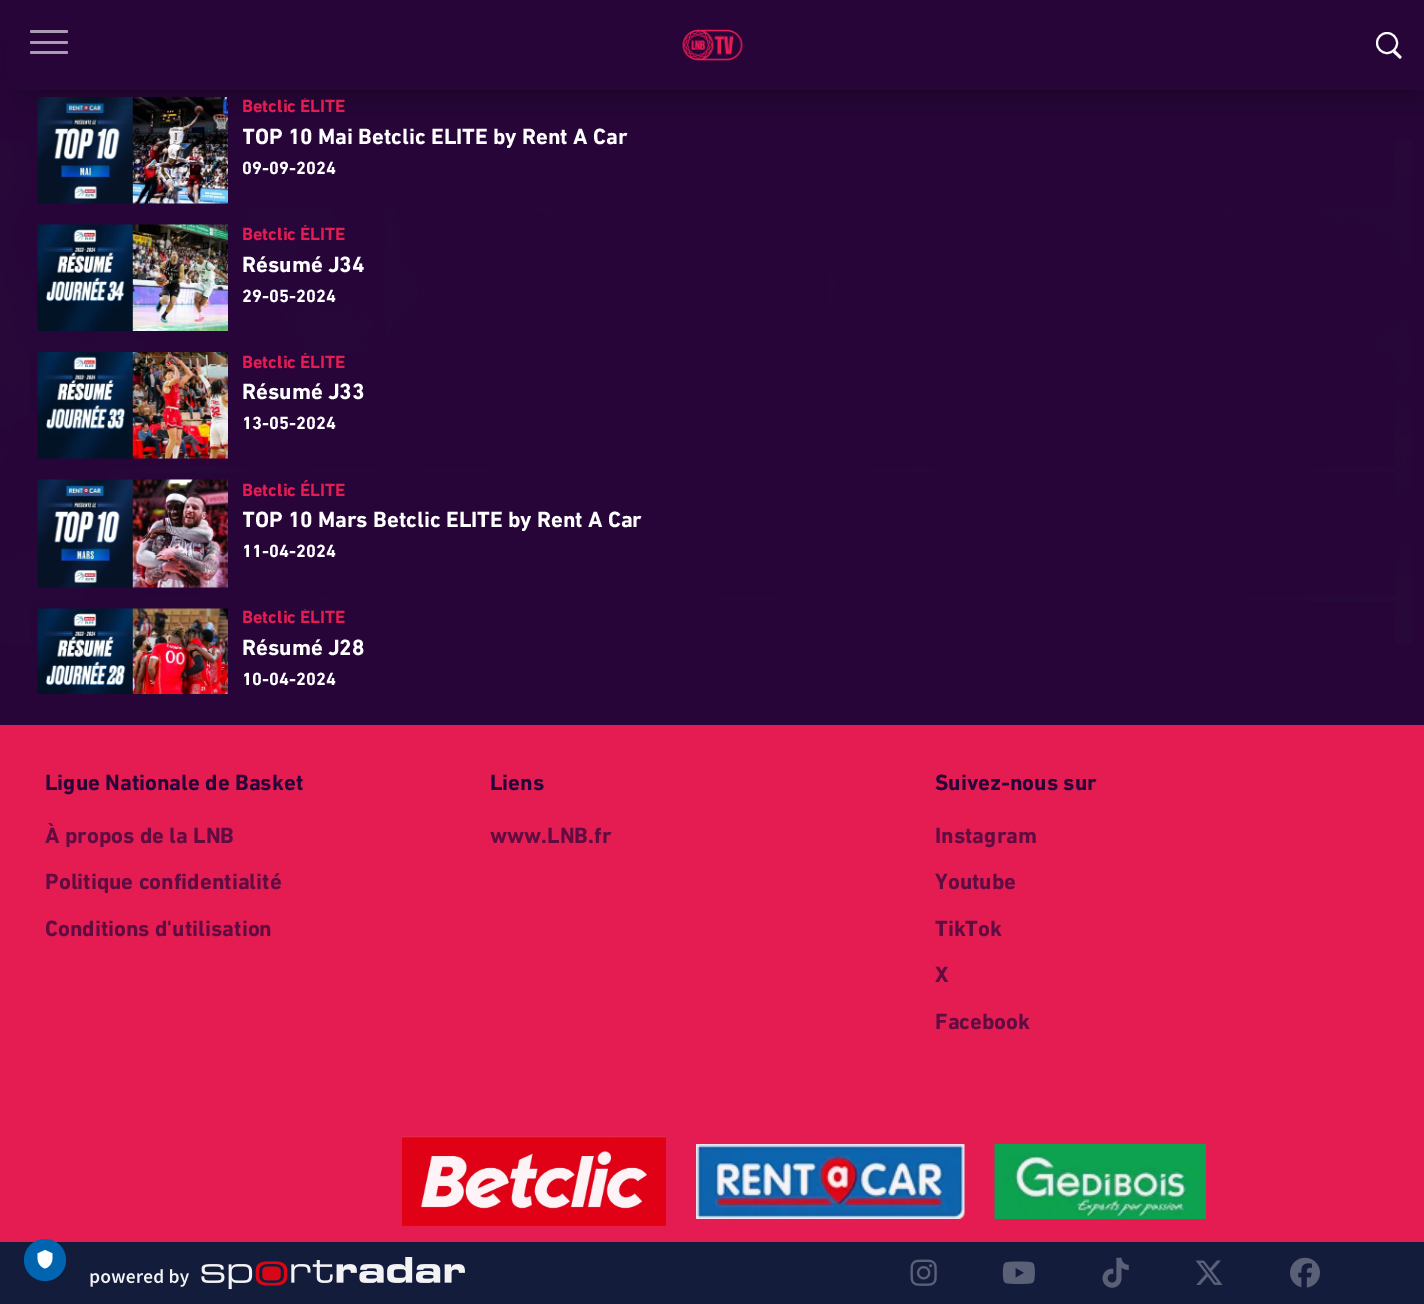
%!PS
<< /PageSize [1424 1304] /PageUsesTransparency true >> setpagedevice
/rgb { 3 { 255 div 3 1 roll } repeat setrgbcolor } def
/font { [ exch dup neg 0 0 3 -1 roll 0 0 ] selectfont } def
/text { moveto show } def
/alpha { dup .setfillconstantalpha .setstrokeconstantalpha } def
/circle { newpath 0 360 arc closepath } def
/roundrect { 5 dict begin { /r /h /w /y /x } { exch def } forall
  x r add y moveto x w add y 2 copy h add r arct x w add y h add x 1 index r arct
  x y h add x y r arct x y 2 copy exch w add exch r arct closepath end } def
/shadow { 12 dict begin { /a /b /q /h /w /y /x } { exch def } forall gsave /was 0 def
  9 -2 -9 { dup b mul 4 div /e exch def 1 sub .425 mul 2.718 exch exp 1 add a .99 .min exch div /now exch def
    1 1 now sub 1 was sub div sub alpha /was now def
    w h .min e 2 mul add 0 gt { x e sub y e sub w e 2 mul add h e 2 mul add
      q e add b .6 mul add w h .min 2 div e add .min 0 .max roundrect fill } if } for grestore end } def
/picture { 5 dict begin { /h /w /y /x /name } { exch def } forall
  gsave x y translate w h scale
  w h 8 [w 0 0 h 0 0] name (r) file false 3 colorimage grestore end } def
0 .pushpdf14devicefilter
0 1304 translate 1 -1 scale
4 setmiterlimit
39 5 57 rgb
0 0 1424 1304 rectfill
(img_07.rgb) 0 141 1412 503 picture
185 141 1210 65 rectfill
(img_02.rgb) 37 97 191 107 picture
0 0 0 rgb
33 33 1389 54 0 24 0.26 shadow
33 33 1389 54 0 24 0.26 shadow
39 5 57 rgb
5 1 1419 89 rectfill
169 155 176 rgb
30 30 38 3 1.5 roundrect fill
30 41 38 3 1.5 roundrect fill
30 51 38 3 1.5 roundrect fill
(img_01.rgb) 682 29 61 32 picture
255 255 255 rgb
2 setlinewidth
1387 43 10 circle stroke
1395 50 moveto 6 6 rlineto 0.5 0.5 0.5 1.5 0 2 rcurveto -0.5 1 -1.5 1 -2 0 rcurveto -6 -5.5 rlineto closepath fill
(img_03.rgb) 37 224 191 107 picture
39 5 57 rgb
30 354 1365 113 rectfill
(img_04.rgb) 37 352 191 107 picture
130 473 1265 123 rectfill
(img_05.rgb) 37 479 191 109 picture
30 602 1365 42 rectfill
(img_06.rgb) 37 608 191 86 picture
229 28 82 rgb
0 725 1424 517 rectfill
(img_08.rgb) 402 1136 264 91 picture
(img_09.rgb) 696 1144 269 75 picture
(img_10.rgb) 994 1144 212 75 picture
20 28 60 rgb
0 1242 1424 62 rectfill
(img_11.rgb) 90 1257 375 33 picture
(img_12.rgb) 910 1259 27 27 picture
(img_13.rgb) 1002 1261 33 23 picture
(img_14.rgb) 1102 1257 27 31 picture
(img_15.rgb) 1195 1260 28 25 picture
(img_16.rgb) 1290 1257 30 31 picture
0 100 175 rgb
45 1260 21 circle fill
(img_17.rgb) 37 1250 16 19 picture
gsave
243 98 1145 21 rectclip
/DINNext-Bold 18 font
229 28 82 rgb
(Betclic ÉLITE) 242 112 text
grestore
gsave
243 119 1145 40 rectclip
/DINNext-Bold 22.5 font
255 255 255 rgb
(TOP 10 Mai Betclic ELITE by Rent A Car) 242 144 text
grestore
/DINNext-Bold 18 font
255 255 255 rgb
(09-09-2024) 242 174 text
gsave
243 225 1145 21 rectclip
229 28 82 rgb
(Betclic ÉLITE) 242 240 text
grestore
/DINNext-Bold 22.5 font
(Résumé J34) 242 272 text
/DINNext-Bold 18 font
(29-05-2024) 242 302 text
gsave
243 353 1145 21 rectclip
229 28 82 rgb
(Betclic ÉLITE) 242 368 text
grestore
/DINNext-Bold 22.5 font
(Résumé J33) 242 399 text
/DINNext-Bold 18 font
(13-05-2024) 242 429 text
229 28 82 rgb
(Betclic ÉLITE) 242 496 text
gsave
243 501 1145 41 rectclip
/DINNext-Bold 22.5 font
255 255 255 rgb
(TOP 10 Mars Betclic ELITE by Rent A Car) 242 527 text
grestore
255 255 255 rgb
(11-04-2024) 242 557 text
gsave
243 609 1145 21 rectclip
229 28 82 rgb
(Betclic ÉLITE) 242 623 text
grestore
/DINNext-Bold 22.5 font
(Résumé J28) 242 655 text
/DINNext-Bold 18 font
(10-04-2024) 242 685 text
/DINNext-Bold 22.5 font
39 5 57 rgb
(Ligue Nationale de Basket) 45 790 text
96 12 65 rgb
(À propos de la LNB) 45 843 text
(Politique confidentialité) 45 889 text
(Conditions d'utilisation) 45 936 text
39 5 57 rgb
(Liens) 490 790 text
96 12 65 rgb
(www.LNB.fr) 490 843 text
39 5 57 rgb
(Suivez-nous sur) 935 790 text
96 12 65 rgb
(Instagram) 935 843 text
(Youtube) 935 889 text
(TikTok) 935 936 text
(X) 935 982 text
(Facebook) 935 1029 text
.poppdf14devicefilter showpage
